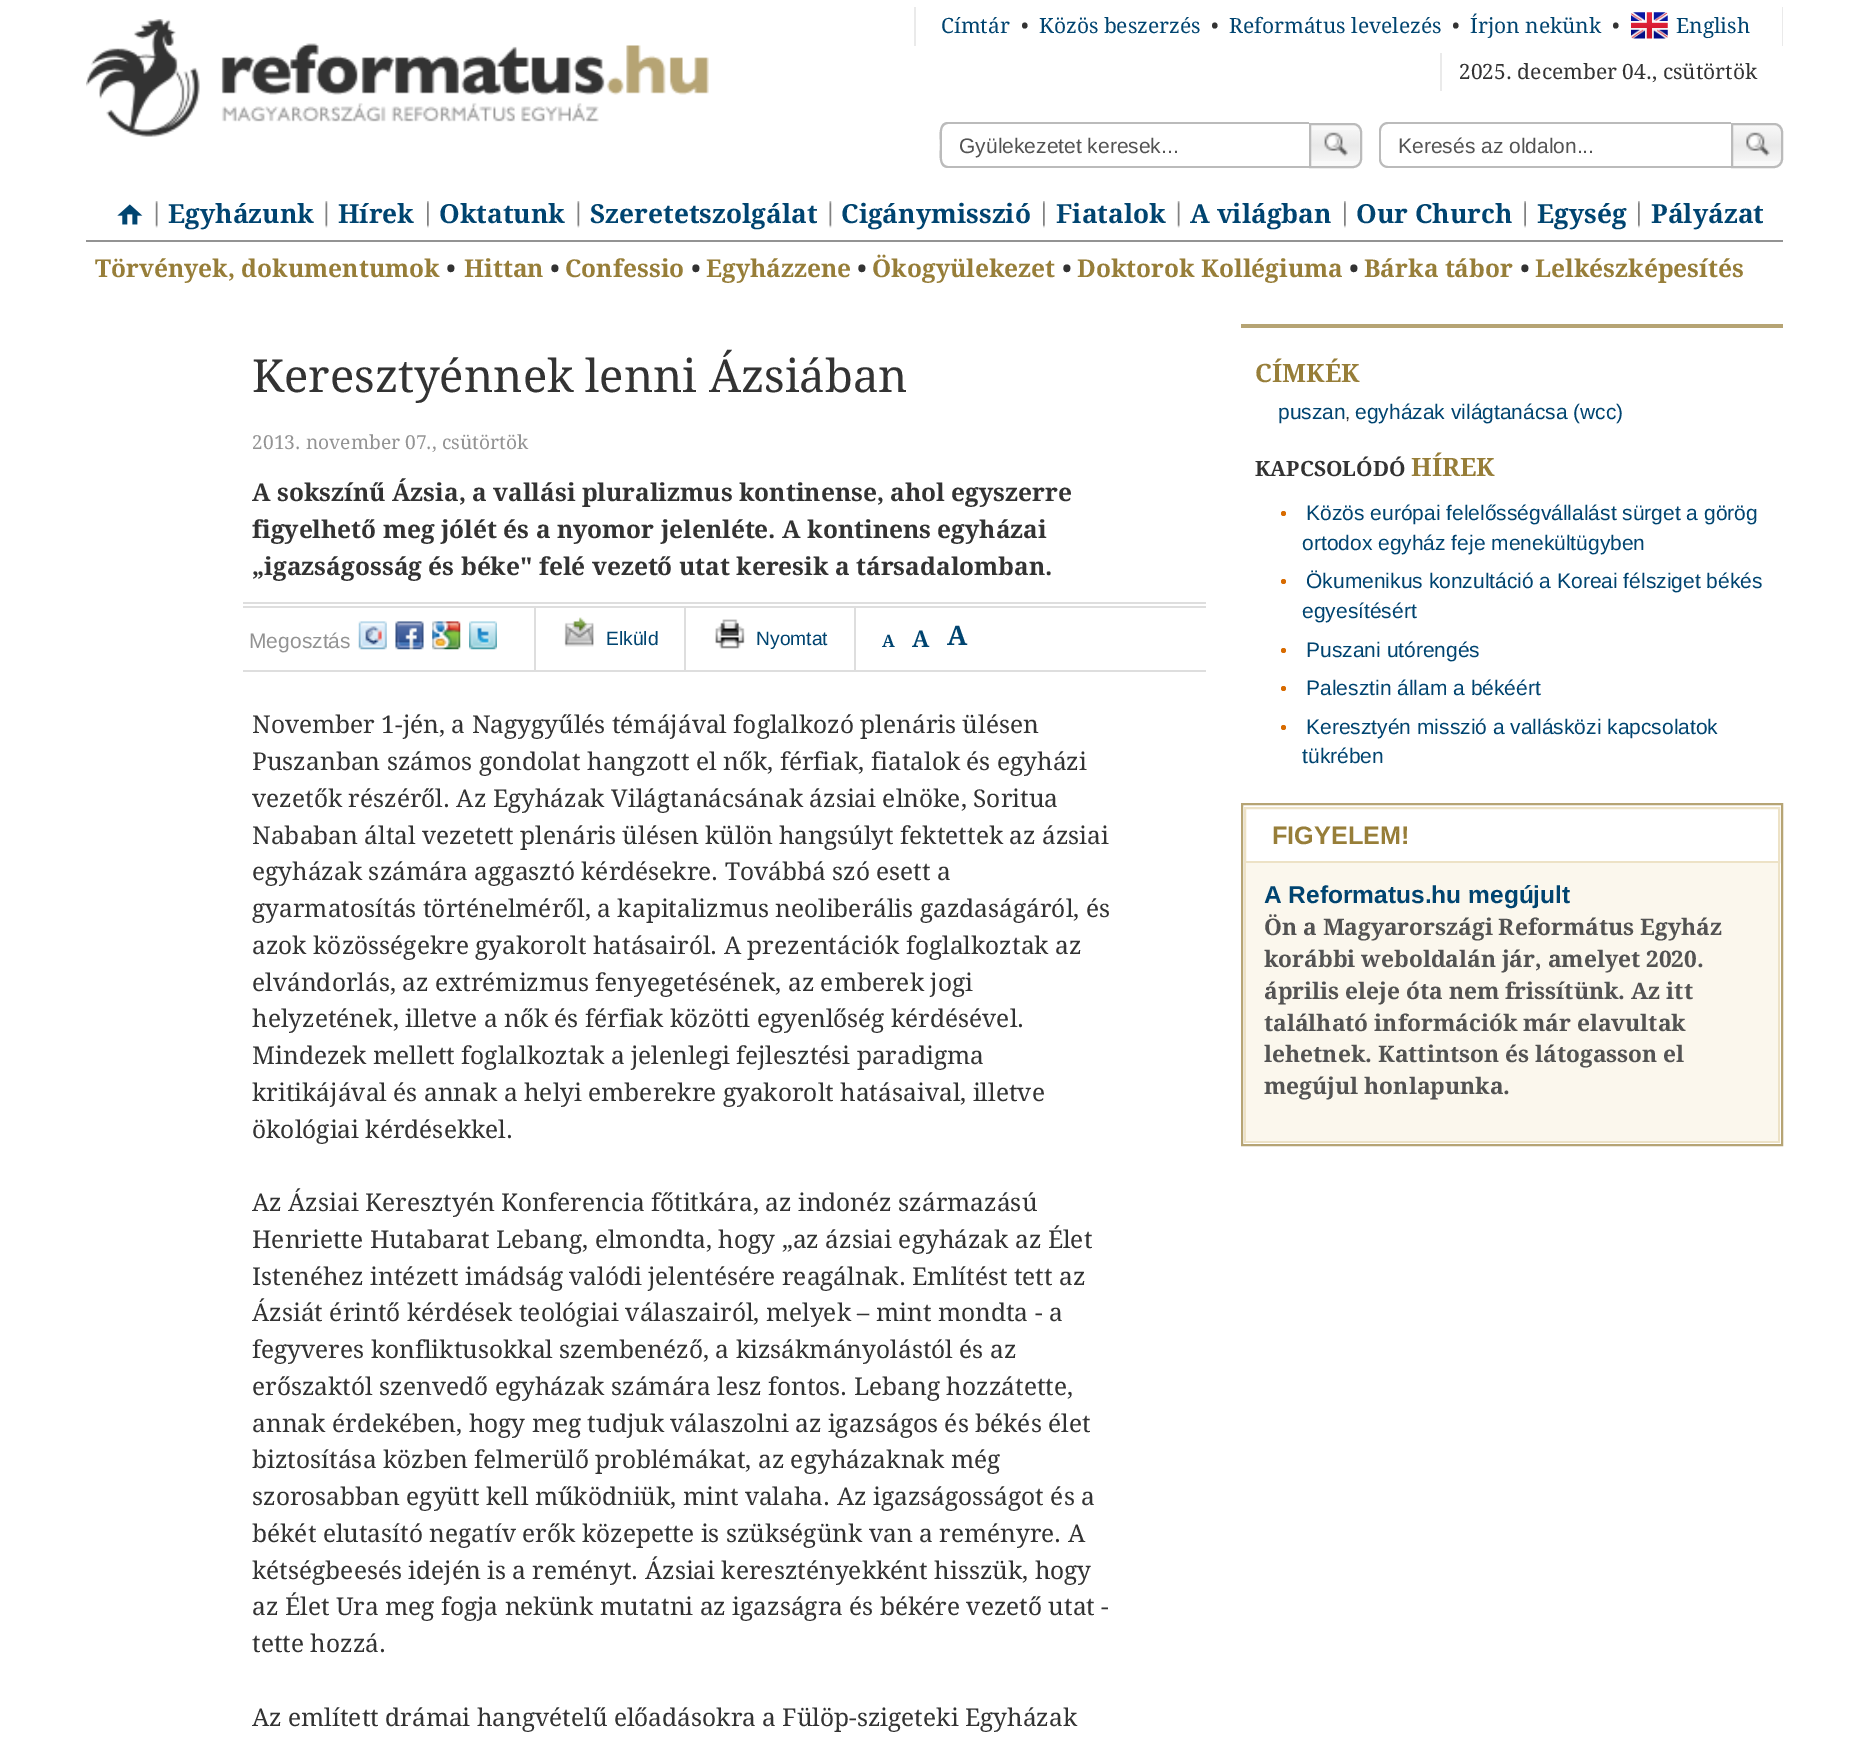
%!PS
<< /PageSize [1869 1741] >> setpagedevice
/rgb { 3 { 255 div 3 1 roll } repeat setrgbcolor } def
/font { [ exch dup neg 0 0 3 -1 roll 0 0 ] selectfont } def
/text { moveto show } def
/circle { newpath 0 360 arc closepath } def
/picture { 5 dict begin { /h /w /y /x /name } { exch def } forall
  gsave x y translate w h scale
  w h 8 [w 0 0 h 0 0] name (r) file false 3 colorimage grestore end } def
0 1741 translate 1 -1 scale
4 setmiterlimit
255 255 255 rgb
0 0 1869 1741 rectfill
(img_01.rgb) 86 19 623 118 picture
234 234 234 rgb
1782 7 1 39 rectfill
914 7 2 39 rectfill
(img_02.rgb) 1631 12 37 27 picture
1440 53 2 38 rectfill
187 187 187 rgb
948 122 moveto 361 0 rlineto 0 46 rlineto -361 0 rlineto -11 0 -8 -16 -8 -23 rcurveto 0 -7 -3 -23 8 -23 rcurveto closepath 948 124 moveto 361 0 rlineto 0 42 rlineto -361 0 rlineto -3 0 -6 -3 -6 -7 rcurveto 0 -28 rlineto 0 -4 3 -7 6 -7 rcurveto closepath eofill
249 249 249 rgb
1309 123 moveto 44 0 rlineto 5 0 9 4 9 9 rcurveto 0 27 rlineto 0 5 -4 9 -9 9 rcurveto -44 0 rlineto closepath fill
(img_03.rgb) 1311 130 49 31 picture
187 187 187 rgb
2 setlinewidth
1310 124 moveto 43 0 rlineto 4.5 0 8 3.5 8 8 rcurveto 0 27 rlineto 0 4.5 -3.5 8 -8 8 rcurveto -43 0 rlineto closepath stroke
1388 122 moveto 343 0 rlineto 0 46 rlineto -343 0 rlineto -5 0 -9 -4 -9 -9 rcurveto 0 -28 rlineto 0 -5 4 -9 9 -9 rcurveto closepath 1388 124 moveto 343 0 rlineto 0 42 rlineto -343 0 rlineto -4 0 -7 -3 -7 -7 rcurveto 0 -28 rlineto 0 -4 3 -7 7 -7 rcurveto closepath eofill
249 249 249 rgb
1731 123 moveto 43 0 rlineto 5 0 9 4 9 9 rcurveto 0 27 rlineto 0 5 -4 9 -9 9 rcurveto -43 0 rlineto closepath fill
(img_04.rgb) 1733 124 49 37 picture
187 187 187 rgb
1732 124 moveto 42 0 rlineto 4.5 0 8 3.5 8 8 rcurveto 0 27 rlineto 0 4.5 -3.5 8 -8 8 rcurveto -42 0 rlineto closepath stroke
147 147 147 rgb
86 240 1697 2 rectfill
(img_05.rgb) 117 204 26 21 picture
(img_06.rgb) 155 201 3 27 picture
(img_07.rgb) 325 201 3 27 picture
(img_08.rgb) 427 201 2 27 picture
(img_07.rgb) 577 201 3 27 picture
(img_07.rgb) 829 201 3 27 picture
(img_08.rgb) 1043 201 2 27 picture
(img_06.rgb) 1177 201 3 27 picture
(img_08.rgb) 1344 201 2 27 picture
(img_09.rgb) 1524 201 2 27 picture
(img_08.rgb) 1638 201 2 27 picture
222 222 222 rgb
243 602 963 2 rectfill
243 606 963 2 rectfill
243 670 963 2 rectfill
(img_10.rgb) 358 621 29 29 picture
(img_11.rgb) 395 621 29 29 picture
(img_12.rgb) 432 621 29 29 picture
(img_13.rgb) 469 621 28 29 picture
534 607 2 63 rectfill
(img_14.rgb) 564 617 30 30 picture
684 607 2 63 rectfill
(img_15.rgb) 715 619 30 30 picture
854 607 2 63 rectfill
182 164 116 rgb
1241 324 542 4 rectfill
216 107 0 rgb
1283.5 513.5 2.5 circle fill
1283.5 581.5 2.5 circle fill
1283.5 650.5 2.5 circle fill
1283.5 688.5 2.5 circle fill
1283.5 727.5 2.5 circle fill
182 164 116 rgb
1242 804 540 341 rectstroke
237 226 198 rgb
1245 808 534 54 rectstroke
251 247 237 rgb
1246 863 532 278 rectfill
237 226 198 rgb
1778 863 2 280 rectfill
1244 1141 536 2 rectfill
1244 863 2 280 rectfill
/DroidSerif-Regular 21 font
0 68 112 rgb
(Címtár) 941 33 text
51 51 51 rgb
(•) 1021 33 text
0 68 112 rgb
(Közös beszerzés) 1039 33 text
51 51 51 rgb
(•) 1211 33 text
0 68 112 rgb
(Református levelezés) 1229 33 text
51 51 51 rgb
(•) 1452 33 text
0 68 112 rgb
(Írjon nekünk) 1470 33 text
51 51 51 rgb
(•) 1612 33 text
0 68 112 rgb
(English) 1676 33 text
51 51 51 rgb
(2025. december 04., csütörtök) 1459 79 text
/LiberationSans-Regular 21 font
83 83 83 rgb
(Gyülekezetet keresek...) 959 153 text
(Keresés az oldalon...) 1398 153 text
/DroidSerif-Bold 26.25 font
0 68 112 rgb
(Egyházunk) 168 223 text
(Hírek) 338 223 text
(Oktatunk) 439 223 text
(Szeretetszolgálat) 590 223 text
(Cigánymisszió) 841 223 text
(Fiatalok) 1056 223 text
(A világban) 1190 223 text
(Our Church) 1356 223 text
(Egység) 1537 223 text
(Pályázat) 1651 223 text
/DroidSerif-Bold 24.5 font
151 126 57 rgb
(Törvények, dokumentumok) 95 277 text
51 51 51 rgb
(•) 446 277 text
151 126 57 rgb
(Hittan) 464 277 text
51 51 51 rgb
(•) 550 277 text
151 126 57 rgb
(Confessio) 565 277 text
51 51 51 rgb
(•) 691 277 text
151 126 57 rgb
(Egyházzene) 706 277 text
51 51 51 rgb
(•) 857 277 text
151 126 57 rgb
(Ökogyülekezet) 872 277 text
51 51 51 rgb
(•) 1062 277 text
151 126 57 rgb
(Doktorok Kollégiuma) 1077 277 text
51 51 51 rgb
(•) 1349 277 text
151 126 57 rgb
(Bárka tábor) 1364 277 text
51 51 51 rgb
(•) 1520 277 text
151 126 57 rgb
(Lelkészképesítés) 1535 277 text
/DroidSerif-Regular 45.5 font
51 51 51 rgb
(Keresztyénnek lenni Ázsiában) 252 392 text
/DroidSerif-Regular 19.25 font
147 147 147 rgb
(2013. november 07., csütörtök) 252 449 text
/DroidSerif-Bold 24.5 font
51 51 51 rgb
(A sokszínű Ázsia, a vallási pluralizmus kontinense, ahol egyszerre) 252 501 text
(figyelhető meg jólét és a nyomor jelenléte. A kontinens egyházai) 252 538 text
(„igazságosság és béke" felé vezető utat keresik a társadalomban.) 252 575 text
/LiberationSans-Regular 21 font
147 147 147 rgb
(Megosztás) 249 648 text
/LiberationSans-Regular 19.25 font
0 68 112 rgb
(Elküld) 606 645 text
(Nyomtat) 756 645 text
/DroidSerif-Bold 17 font
(A) 882 647 text
/DroidSerif-Bold 23 font
(A) 912 647 text
/DroidSerif-Bold 27 font
(A) 947 645 text
/DroidSerif-Regular 24.5 font
51 51 51 rgb
(November 1-jén, a Nagygyűlés témájával foglalkozó plenáris ülésen) 252 733 text
(Puszanban számos gondolat hangzott el nők, férfiak, fiatalok és egyházi) 252 770 text
(vezetők részéről. Az Egyházak Világtanácsának ázsiai elnöke, Soritua) 252 807 text
(Nababan által vezetett plenáris ülésen külön hangsúlyt fektettek az ázsiai) 252 844 text
(egyházak számára aggasztó kérdésekre. Továbbá szó esett a) 252 880 text
(gyarmatosítás történelméről, a kapitalizmus neoliberális gazdaságáról, és) 252 917 text
(azok közösségekre gyakorolt hatásairól. A prezentációk foglalkoztak az) 252 954 text
(elvándorlás, az extrémizmus fenyegetésének, az emberek jogi) 252 991 text
(helyzetének, illetve a nők és férfiak közötti egyenlőség kérdésével.) 252 1027 text
(Mindezek mellett foglalkoztak a jelenlegi fejlesztési paradigma) 252 1064 text
(kritikájával és annak a helyi emberekre gyakorolt hatásaival, illetve) 252 1101 text
(ökológiai kérdésekkel.) 252 1138 text
(Az Ázsiai Keresztyén Konferencia főtitkára, az indonéz származású) 252 1211 text
(Henriette Hutabarat Lebang, elmondta, hogy „az ázsiai egyházak az Élet) 252 1248 text
(Istenéhez intézett imádság valódi jelentésére reagálnak. Említést tett az) 252 1285 text
(Ázsiát érintő kérdések teológiai válaszairól, melyek – mint mondta - a) 252 1321 text
(fegyveres konfliktusokkal szembenéző, a kizsákmányolástól és az) 252 1358 text
(erőszaktól szenvedő egyházak számára lesz fontos. Lebang hozzátette,) 252 1395 text
(annak érdekében, hogy meg tudjuk válaszolni az igazságos és békés élet) 252 1432 text
(biztosítása közben felmerülő problémákat, az egyházaknak még) 252 1468 text
(szorosabban együtt kell működniük, mint valaha. Az igazságosságot és a) 252 1505 text
(békét elutasító negatív erők közepette is szükségünk van a reményre. A) 252 1542 text
(kétségbeesés idején is a reményt. Ázsiai keresztényekként hisszük, hogy) 252 1579 text
(az Élet Ura meg fogja nekünk mutatni az igazságra és békére vezető utat -) 252 1615 text
(tette hozzá.) 252 1652 text
(Az említett drámai hangvételű előadásokra a Fülöp-szigeteki Egyházak) 252 1726 text
/DroidSerif-Bold 25.25 font
151 126 57 rgb
(CÍMKÉK) 1255 382 text
/LiberationSans-Regular 21 font
0 68 112 rgb
(puszan) 1278 419 text
/LiberationSans-Regular 18 font
51 51 51 rgb
(,) 1345 419 text
/LiberationSans-Regular 21 font
0 68 112 rgb
(egyházak világtanácsa \(wcc\)) 1355 419 text
/DroidSerif-Bold 21 font
51 51 51 rgb
(KAPCSOLÓDÓ) 1255 476 text
/DroidSerif-Bold 25.25 font
151 126 57 rgb
(HÍREK) 1411 476 text
/LiberationSans-Regular 21 font
0 68 112 rgb
(Közös európai felelősségvállalást sürget a görög) 1306 520 text
(ortodox egyház feje menekültügyben) 1302 550 text
(Ökumenikus konzultáció a Koreai félsziget békés) 1306 588 text
(egyesítésért) 1302 618 text
(Puszani utórengés) 1306 657 text
(Palesztin állam a békéért) 1306 695 text
(Keresztyén misszió a vallásközi kapcsolatok) 1306 734 text
(tükrében) 1302 763 text
/LiberationSans-Bold 25.25 font
151 126 57 rgb
(FIGYELEM!) 1272 844 text
/LiberationSans-Bold 24.5 font
0 68 112 rgb
(A Reformatus.hu megújult) 1264 903 text
/DroidSerif-Bold 22.75 font
83 83 83 rgb
(Ön a Magyarországi Református Egyház) 1264 935 text
(korábbi weboldalán jár, amelyet 2020.) 1264 967 text
(április eleje óta nem frissítünk. Az itt) 1264 999 text
(található információk már elavultak) 1264 1031 text
(lehetnek. Kattintson és látogasson el) 1264 1062 text
(megújul honlapunka.) 1264 1094 text
showpage
